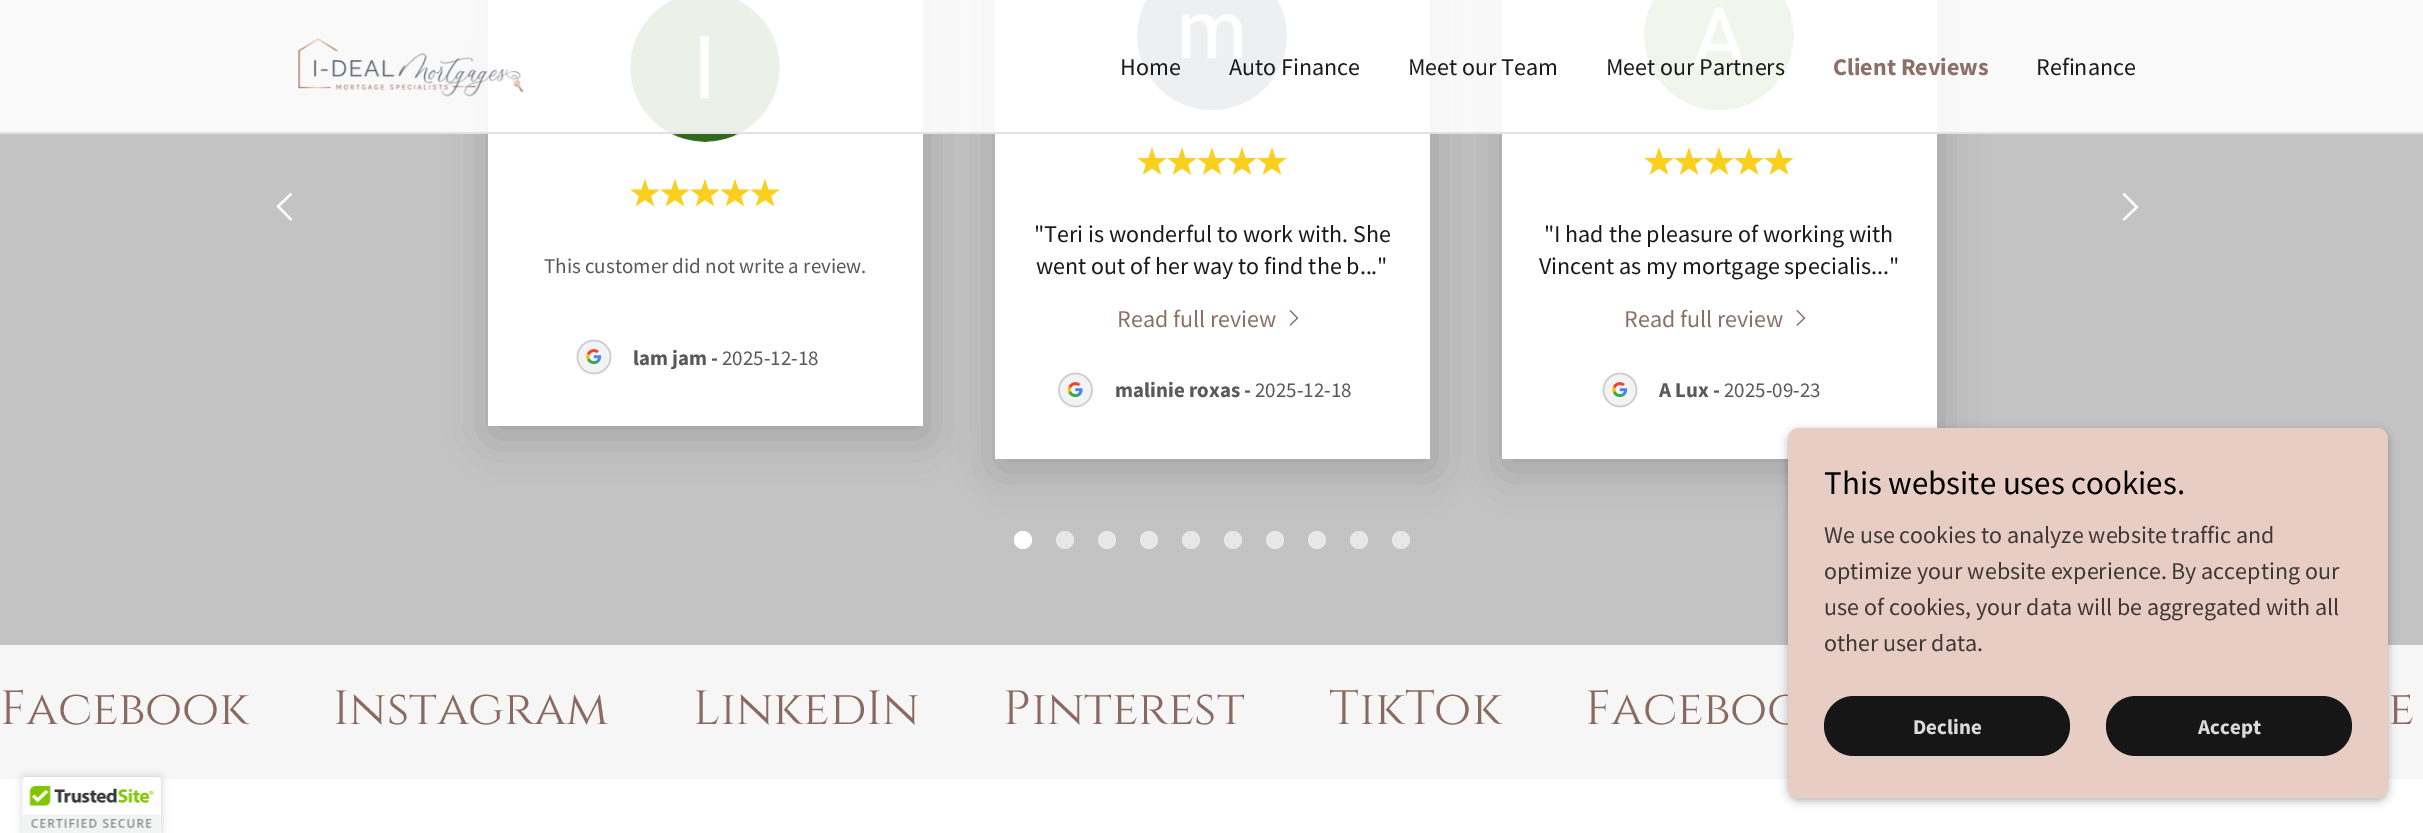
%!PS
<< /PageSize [2423 833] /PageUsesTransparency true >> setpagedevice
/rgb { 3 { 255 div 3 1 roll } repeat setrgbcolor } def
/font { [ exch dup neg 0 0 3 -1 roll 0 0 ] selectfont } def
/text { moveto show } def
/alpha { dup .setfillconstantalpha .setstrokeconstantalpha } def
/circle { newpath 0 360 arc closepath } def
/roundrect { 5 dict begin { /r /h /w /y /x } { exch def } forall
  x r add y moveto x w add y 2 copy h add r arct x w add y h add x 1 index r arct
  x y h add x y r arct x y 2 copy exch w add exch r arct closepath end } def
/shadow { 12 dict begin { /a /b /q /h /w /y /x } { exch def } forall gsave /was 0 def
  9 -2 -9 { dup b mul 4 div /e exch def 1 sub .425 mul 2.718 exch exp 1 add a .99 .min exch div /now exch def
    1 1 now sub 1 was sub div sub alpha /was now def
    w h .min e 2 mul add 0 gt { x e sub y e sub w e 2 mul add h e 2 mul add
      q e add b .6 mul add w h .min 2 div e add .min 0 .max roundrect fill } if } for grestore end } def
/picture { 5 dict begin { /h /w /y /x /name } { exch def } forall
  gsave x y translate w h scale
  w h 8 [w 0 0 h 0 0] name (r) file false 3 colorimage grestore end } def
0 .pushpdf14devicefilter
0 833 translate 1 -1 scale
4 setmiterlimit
255 255 255 rgb
0 0 2423 833 rectfill
195 195 195 rgb
0 0 2423 645 rectfill
0 0 0 rgb
491 -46 435 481 0 22.5 0.18 shadow
255 255 255 rgb
488 0 435 426 rectfill
243 243 243 rgb
705 68 75 circle fill
(img_04.rgb) 630 0 150 142 picture
255 255 255 rgb
1023 540 9 circle fill
0 0 0 rgb
998 -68 435 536 0 22.5 0.18 shadow
255 255 255 rgb
995 0 435 459 rectfill
243 243 243 rgb
1212 36 75 circle fill
(img_06.rgb) 1137 0 150 111 picture
0 0 0 rgb
1505 -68 435 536 0 22.5 0.18 shadow
255 255 255 rgb
1502 0 435 459 rectfill
243 243 243 rgb
1719 36 75 circle fill
(img_09.rgb) 1644 0 150 111 picture
0.9 alpha
255 255 255 rgb
0 0 2423 132 rectfill
1 alpha
(img_01.rgb) 298 38 226 59 picture
226 226 226 rgb
0 132 2423 2 rectfill
(img_02.rgb) 276 193 16 28 picture
(img_03.rgb) 2122 193 17 28 picture
251 207 30 rgb
645 179 moveto 3.5 10.5 rlineto 11 0 rlineto -8.5 6.5 rlineto 3 10 rlineto -9 -6 rlineto -9 6 rlineto 3 -10 rlineto -8.5 -6.5 rlineto 11 0 rlineto closepath 675 179 moveto 3.5 10.5 rlineto 11 0 rlineto -8.5 6.5 rlineto 3 10 rlineto -9 -6 rlineto -9 6 rlineto 3 -10 rlineto -8.5 -6.5 rlineto 11 0 rlineto closepath fill
705 179 moveto 3.5 10.5 rlineto 11 0 rlineto -8.5 6.5 rlineto 3 10 rlineto -9 -6 rlineto -9 6 rlineto 3 -10 rlineto -8.5 -6.5 rlineto 11 0 rlineto closepath 735 179 moveto 3.5 10.5 rlineto 11 0 rlineto -8.5 6.5 rlineto 3 10 rlineto -9 -6 rlineto -9 6 rlineto 3 -10 rlineto -8.5 -6.5 rlineto 11 0 rlineto closepath fill
765 179 moveto 3.5 10.5 rlineto 11 0 rlineto -8.5 6.5 rlineto 3 10 rlineto -9 -6 rlineto -9 6 rlineto 3 -10 rlineto -8.5 -6.5 rlineto 11 0 rlineto closepath fill
(img_05.rgb) 576 339 36 36 picture
1152 147.5 moveto 3.5 10.5 rlineto 11 0 rlineto -8.5 6.5 rlineto 3 10 rlineto -9 -6 rlineto -9 6 rlineto 3 -10 rlineto -8.5 -6.5 rlineto 11 0 rlineto closepath 1182 147.5 moveto 3.5 10.5 rlineto 11 0 rlineto -8.5 6.5 rlineto 3 10 rlineto -9 -6 rlineto -9 6 rlineto 3 -10 rlineto -8.5 -6.5 rlineto 11 0 rlineto closepath fill
1212 147.5 moveto 3.5 10.5 rlineto 11 0 rlineto -8.5 6.5 rlineto 3 10 rlineto -9 -6 rlineto -9 6 rlineto 3 -10 rlineto -8.5 -6.5 rlineto 11 0 rlineto closepath 1242 147.5 moveto 3.5 10.5 rlineto 11 0 rlineto -8.5 6.5 rlineto 3 10 rlineto -9 -6 rlineto -9 6 rlineto 3 -10 rlineto -8.5 -6.5 rlineto 11 0 rlineto closepath fill
1272 147.5 moveto 3.5 10.5 rlineto 11 0 rlineto -8.5 6.5 rlineto 3 10 rlineto -9 -6 rlineto -9 6 rlineto 3 -10 rlineto -8.5 -6.5 rlineto 11 0 rlineto closepath fill
(img_07.rgb) 1289 310 10 16 picture
(img_08.rgb) 1058 372 35 36 picture
1659 147.5 moveto 3.5 10.5 rlineto 11 0 rlineto -8.5 6.5 rlineto 3 10 rlineto -9 -6 rlineto -9 6 rlineto 3 -10 rlineto -8.5 -6.5 rlineto 11 0 rlineto closepath 1689 147.5 moveto 3.5 10.5 rlineto 11 0 rlineto -8.5 6.5 rlineto 3 10 rlineto -9 -6 rlineto -9 6 rlineto 3 -10 rlineto -8.5 -6.5 rlineto 11 0 rlineto closepath fill
1719 147.5 moveto 3.5 10.5 rlineto 11 0 rlineto -8.5 6.5 rlineto 3 10 rlineto -9 -6 rlineto -9 6 rlineto 3 -10 rlineto -8.5 -6.5 rlineto 11 0 rlineto closepath 1749 147.5 moveto 3.5 10.5 rlineto 11 0 rlineto -8.5 6.5 rlineto 3 10 rlineto -9 -6 rlineto -9 6 rlineto 3 -10 rlineto -8.5 -6.5 rlineto 11 0 rlineto closepath fill
1779 147.5 moveto 3.5 10.5 rlineto 11 0 rlineto -8.5 6.5 rlineto 3 10 rlineto -9 -6 rlineto -9 6 rlineto 3 -10 rlineto -8.5 -6.5 rlineto 11 0 rlineto closepath fill
(img_07.rgb) 1796 310 10 16 picture
(img_05.rgb) 1602 372 36 36 picture
231 231 231 rgb
1065 540 9 circle fill
1107 540 9 circle fill
1149 540 9 circle fill
1191 540 9 circle fill
1233 540 9 circle fill
1275 540 9 circle fill
1317 540 9 circle fill
1359 540 9 circle fill
1401 540 9 circle fill
246 246 246 rgb
0 645 2423 134 rectfill
0 0 0 rgb
1788 431 600 370 11 4.5 0.3 shadow
23 777 138 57 3 4 0.2 shadow
255 255 255 rgb
26 777 moveto 132 0 rlineto 1.5 0 3 1.5 3 3 rcurveto 0 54 rlineto -138 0 rlineto 0 -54 rlineto 0 -1.5 1.5 -3 3 -3 rcurveto closepath fill
(img_10.rgb) 22 779 139 54 picture
/SourceSansPro-Regular 24 font
27 27 27 rgb
(Home) 1120 75 text
(Auto Finance) 1229 75 text
(Meet our Team) 1408 75 text
(Meet our Partners) 1606 75 text
/SourceSansPro-Bold 24 font
140 112 104 rgb
(Client Reviews) 1833 75 text
/SourceSansPro-Regular 24 font
27 27 27 rgb
(Refinance) 2036 75 text
/SourceSansPro-Regular 21 font
89 89 89 rgb
(This customer did not write a review.) 544 273 text
/SourceSansPro-Bold 21 font
(lam jam -) 633 365 text
/SourceSansPro-Regular 21 font
(2025-12-18) 722 365 text
/SourceSansPro-Regular 24 font
27 27 27 rgb
("Teri is wonderful to work with. She) 1034 242 text
(went out of her way to find the b...") 1036 274 text
140 112 104 rgb
(Read full review) 1117 327 text
/SourceSansPro-Bold 21 font
89 89 89 rgb
(malinie roxas -) 1115 397 text
/SourceSansPro-Regular 21 font
(2025-12-18) 1255 397 text
/SourceSansPro-Regular 24 font
27 27 27 rgb
("I had the pleasure of working with) 1544 242 text
(Vincent as my mortgage specialis...") 1539 274 text
140 112 104 rgb
(Read full review) 1624 327 text
/SourceSansPro-Bold 21 font
89 89 89 rgb
(A Lux -) 1659 397 text
/SourceSansPro-Regular 21 font
(2025-09-23) 1724 397 text
/Cinzel-Regular 48 font
138 106 96 rgb
(Facebook) 0 724 text
(Instagram) 333 724 text
(LinkedIn) 693 724 text
(Pinterest) 1003 724 text
(TikTok) 1329 724 text
(Faceboo) 1585 724 text
232 205 197 rgb
1788 428 600 370 11 roundrect fill
22 22 22 rgb
2106 696 246 60 30 roundrect fill
/SourceSansPro-Bold 21 font
219 219 219 rgb
(Accept) 2198 734 text
22 22 22 rgb
1824 696 246 60 30 roundrect fill
219 219 219 rgb
(Decline) 1913 734 text
/SourceSansPro-Regular 24 font
65 56 53 rgb
(other user data.) 1824 651 text
(use of cookies, your data will be aggregated with all) 1824 615 text
(optimize your website experience. By accepting our) 1824 579 text
(We use cookies to analyze website traffic and) 1824 543 text
/SourceSansPro-Regular 33 font
0 0 0 rgb
(This website uses cookies.) 1824 494 text
/Cinzel-Regular 48 font
138 106 96 rgb
(e) 2388 724 text
.poppdf14devicefilter showpage
